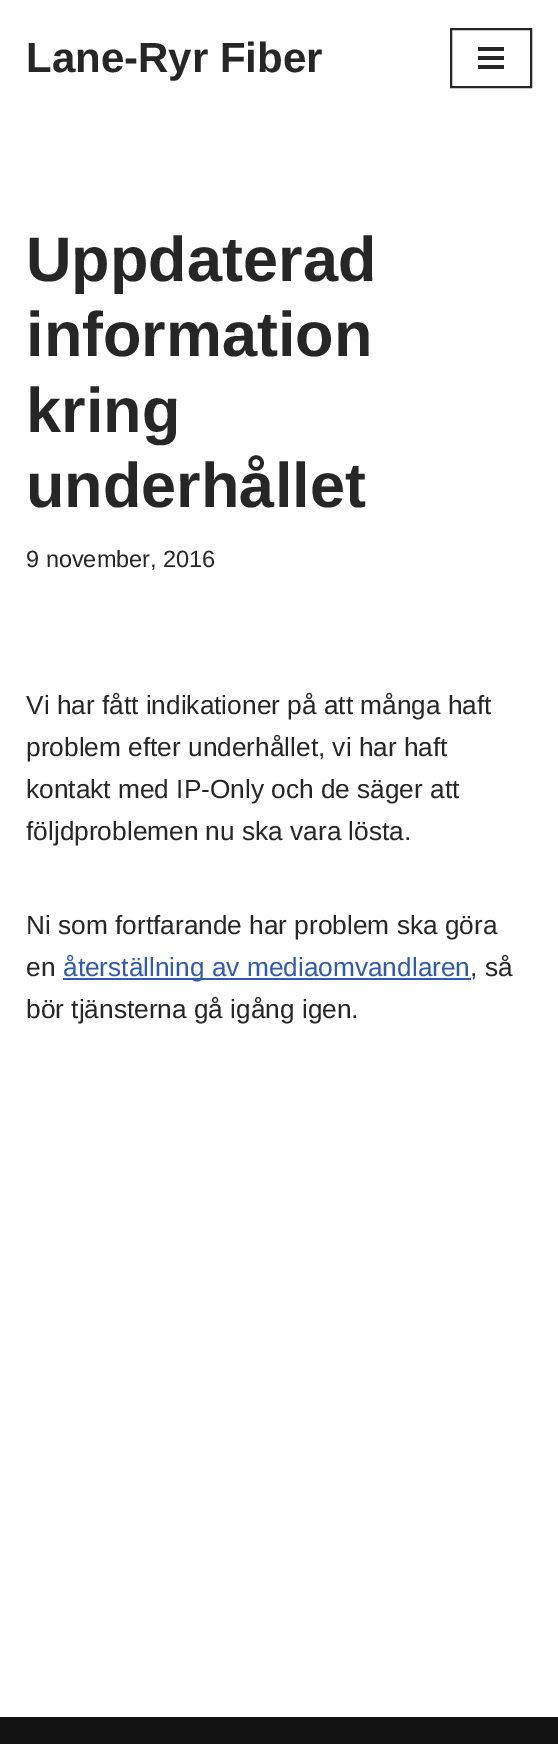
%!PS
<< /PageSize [558 1744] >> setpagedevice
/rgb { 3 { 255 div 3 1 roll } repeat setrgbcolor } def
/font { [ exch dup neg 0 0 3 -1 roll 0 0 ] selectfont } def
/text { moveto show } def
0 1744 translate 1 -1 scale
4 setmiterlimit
255 255 255 rgb
0 0 558 1744 rectfill
39 38 38 rgb
2 setlinewidth
451 29 80 58 rectstroke
478 47 26 4 rectfill
478 56 26 4 rectfill
478 65 26 4 rectfill
47 90 174 rgb
63 978 408 2 rectfill
18 18 18 rgb
0 1717 558 27 rectfill
/LiberationSans-Bold 42 font
39 38 38 rgb
(Lane-Ryr Fiber) 26 72 text
/LiberationSans-Bold 63 font
(Uppdaterad) 26 281 text
(information) 26 356 text
(kring) 26 432 text
(underhållet) 26 507 text
/LiberationSans-Regular 23.5 font
(9 november, 2016) 26 567 text
/LiberationSans-Regular 26.25 font
(Vi har fått indikationer på att många haft) 26 714 text
(problem efter underhållet, vi har haft) 26 756 text
(kontakt med IP-Only och de säger att) 26 798 text
(följdproblemen nu ska vara lösta.) 26 840 text
(Ni som fortfarande har problem ska göra) 26 934 text
(en) 26 976 text
47 90 174 rgb
(återställning av mediaomvandlaren) 63 976 text
39 38 38 rgb
(, så) 470 976 text
(bör tjänsterna gå igång igen.) 26 1018 text
showpage
